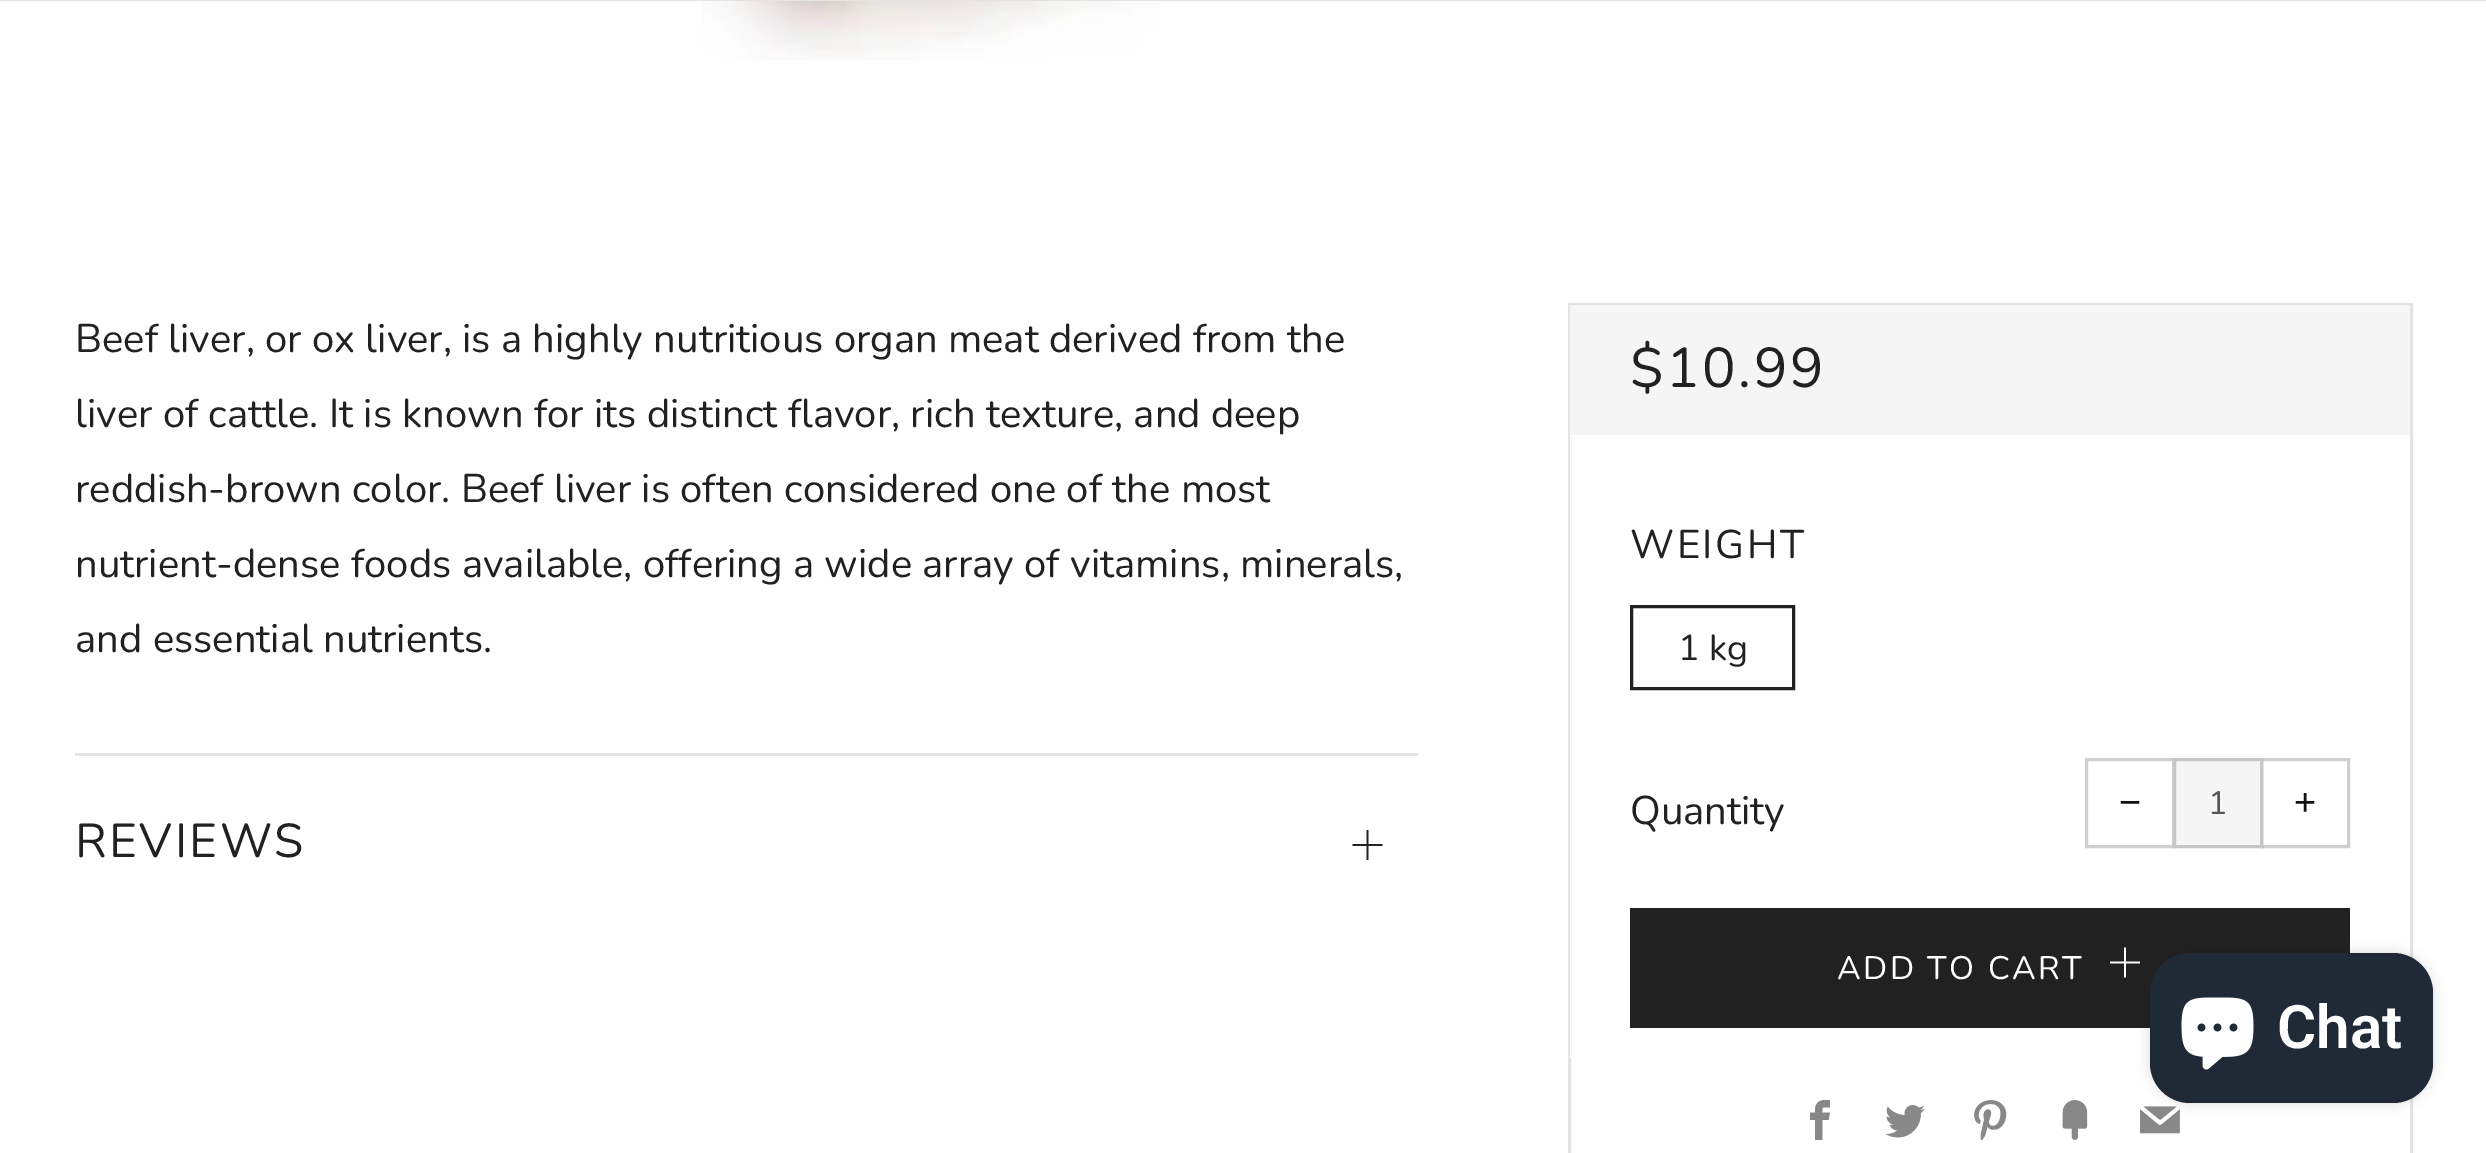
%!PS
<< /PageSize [2486 1153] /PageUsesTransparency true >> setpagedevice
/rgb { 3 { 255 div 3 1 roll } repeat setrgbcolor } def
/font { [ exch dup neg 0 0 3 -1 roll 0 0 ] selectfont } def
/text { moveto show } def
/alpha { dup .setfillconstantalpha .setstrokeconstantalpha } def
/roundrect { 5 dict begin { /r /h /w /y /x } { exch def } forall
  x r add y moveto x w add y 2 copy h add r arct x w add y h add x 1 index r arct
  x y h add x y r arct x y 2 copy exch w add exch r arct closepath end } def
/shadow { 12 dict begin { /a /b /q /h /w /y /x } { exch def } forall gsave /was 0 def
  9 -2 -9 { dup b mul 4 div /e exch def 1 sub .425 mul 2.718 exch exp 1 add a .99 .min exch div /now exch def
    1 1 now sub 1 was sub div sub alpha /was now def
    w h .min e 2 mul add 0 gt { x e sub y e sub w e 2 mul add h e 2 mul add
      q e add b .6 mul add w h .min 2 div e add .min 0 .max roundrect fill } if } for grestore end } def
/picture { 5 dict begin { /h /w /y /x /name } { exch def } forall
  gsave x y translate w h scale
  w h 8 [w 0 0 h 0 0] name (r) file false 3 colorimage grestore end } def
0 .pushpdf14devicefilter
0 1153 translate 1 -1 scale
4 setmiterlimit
255 255 255 rgb
0 0 2486 1153 rectfill
228 228 228 rgb
0 0 2486 1 rectfill
(img_01.rgb) 702 1 458 59 picture
75 753 1343 3 rectfill
(img_02.rgb) 1352 830 31 30 picture
3 setlinewidth
1569.5 304.5 842 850 rectstroke
245 245 245 rgb
1570 305 840 130 rectfill
255 255 255 rgb
1570 435 1 623 rectfill
34 34 34 rgb
1631.5 606.5 162 82 rectstroke
207 207 207 rgb
2086.5 759.5 87 87 rectstroke
245 245 245 rgb
2174.5 759.5 moveto 87 0 rlineto 0 87 rlineto -87 0 rlineto closepath gsave fill grestore
199 199 199 rgb
stroke
0.8 alpha
255 255 255 rgb
2260 758 3 90 rectfill
0.2 alpha
17 17 17 rgb
2261.5 759.5 87 87 rectstroke
1 alpha
33 33 33 rgb
1630 908 720 120 rectfill
(img_03.rgb) 2110 947 30 31 picture
(img_04.rgb) 1810 1100 20 40 picture
(img_05.rgb) 1885 1105 40 33 picture
(img_06.rgb) 1974 1100 33 40 picture
(img_07.rgb) 2062 1100 26 40 picture
(img_08.rgb) 2140 1106 40 28 picture
0 0 0 rgb
2150 953 283 150 40 6 0.15 shadow
32 42 54 rgb
2150 953 283 150 40 roundrect fill
(img_09.rgb) 2181 997 73 73 picture
/Nunito-Regular 40 font
33 33 33 rgb
(Beef liver, or ox liver, is a highly nutritious organ meat derived from the) 75 352 text
(liver of cattle. It is known for its distinct flavor, rich texture, and deep) 75 427 text
(reddish-brown color. Beef liver is often considered one of the most) 75 502 text
(nutrient-dense foods available, offering a wide array of vitamins, minerals,) 75 577 text
(and essential nutrients.) 75 652 text
/Nunito-Regular 47.5 font
75 857 moveto 2.5 0 (REVIEWS) ashow
/Nunito-Regular 56 font
1630 387 moveto 2.5 0 ($10.99) ashow
/Nunito-Regular 40 font
1630 558 moveto 2.5 0 (WEIGHT) ashow
/Nunito-Regular 36 font
(1 kg) 1678 660 text
/Nunito-Regular 40 font
(Quantity) 1630 824 text
/LiberationSans-Regular 38 font
17 17 17 rgb
(−) 2119 815 text
/Nunito-Regular 32.5 font
85 85 85 rgb
(1) 2208 814 text
/LiberationSans-Regular 38 font
17 17 17 rgb
(+) 2294 815 text
/Nunito-Regular 32.5 font
255 255 255 rgb
1837 979 moveto 2.5 0 (ADD TO CART) ashow
/Roboto-SemiBold 60 font
(Chat) 2277 1048 text
.poppdf14devicefilter showpage
